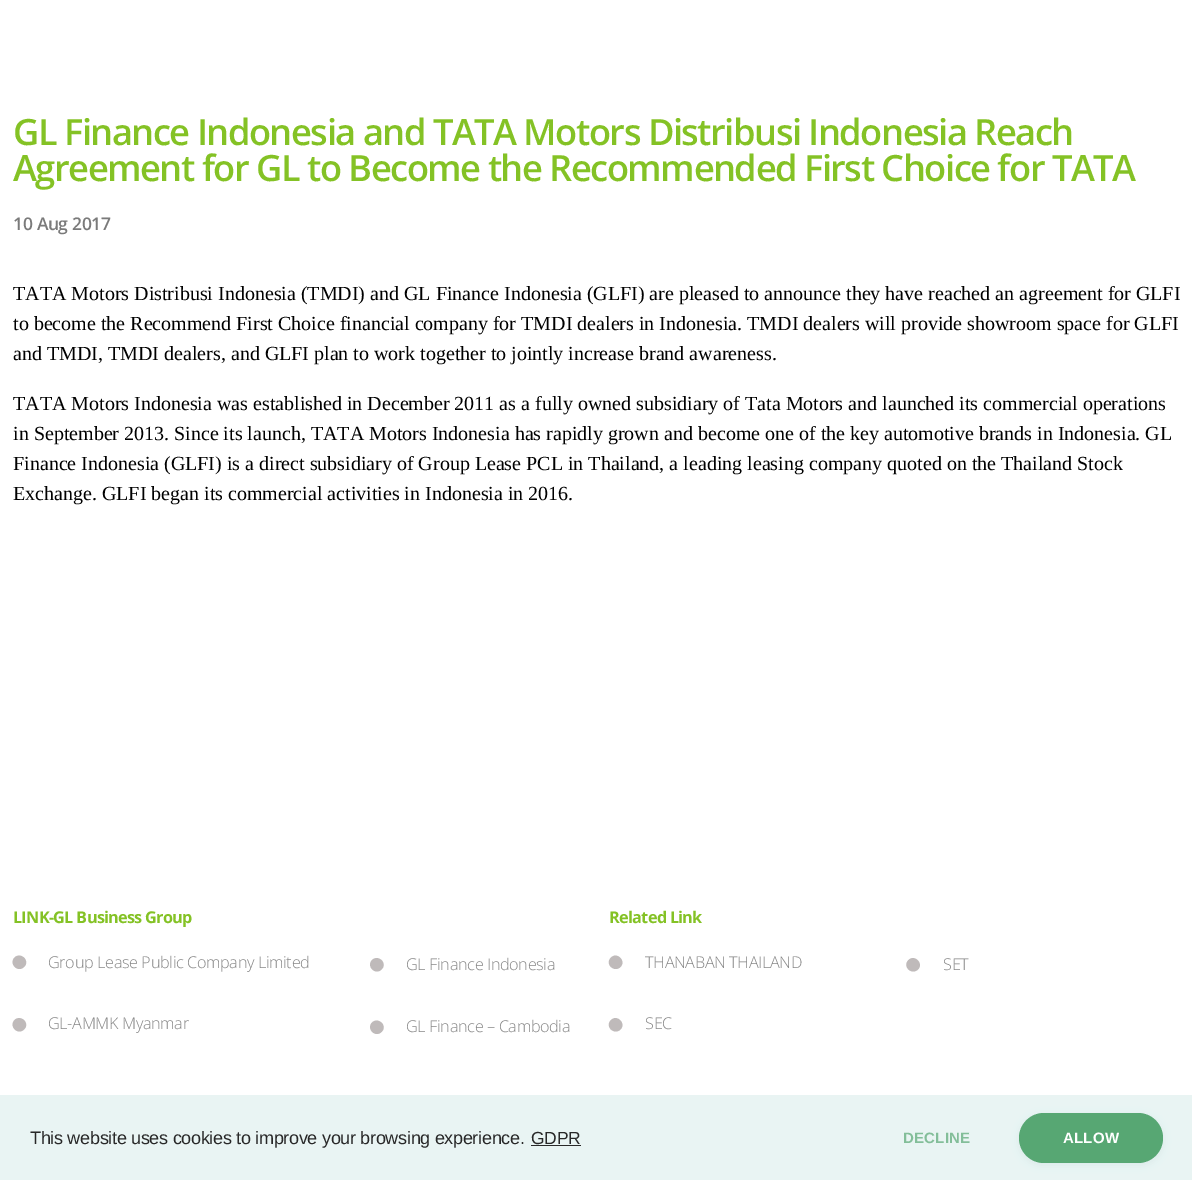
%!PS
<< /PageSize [1192 1180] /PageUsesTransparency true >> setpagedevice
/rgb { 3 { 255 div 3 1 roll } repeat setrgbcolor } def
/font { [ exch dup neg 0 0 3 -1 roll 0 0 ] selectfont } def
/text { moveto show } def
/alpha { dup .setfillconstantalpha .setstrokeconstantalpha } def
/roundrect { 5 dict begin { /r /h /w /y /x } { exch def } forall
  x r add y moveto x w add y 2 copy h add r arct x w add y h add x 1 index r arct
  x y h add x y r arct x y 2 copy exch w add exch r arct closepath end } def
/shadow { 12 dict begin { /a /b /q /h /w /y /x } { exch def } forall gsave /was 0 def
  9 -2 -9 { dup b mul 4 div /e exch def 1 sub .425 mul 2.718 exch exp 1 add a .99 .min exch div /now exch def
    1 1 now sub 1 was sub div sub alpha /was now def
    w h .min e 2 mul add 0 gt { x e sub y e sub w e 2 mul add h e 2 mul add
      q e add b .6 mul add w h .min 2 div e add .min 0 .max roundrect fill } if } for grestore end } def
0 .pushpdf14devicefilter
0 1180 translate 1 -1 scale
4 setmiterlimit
255 255 255 rgb
0 0 1192 1180 rectfill
191 186 186 rgb
14.5 957.5 moveto 6.5 -6 16 3.5 9.5 9.5 rcurveto -6 6 -15.5 -3 -9.5 -9.5 rcurveto closepath fill
14.5 1020 moveto 6.5 -6 16 3.5 9.5 9.5 rcurveto -6 6 -15.5 -3 -9.5 -9.5 rcurveto closepath fill
372 960 moveto 6.5 -6 16 3.5 9.5 9.5 rcurveto -6 6 -15.5 -3 -9.5 -9.5 rcurveto closepath fill
372 1022.5 moveto 6.5 -6 16 3.5 9.5 9.5 rcurveto -6 6 -15.5 -3 -9.5 -9.5 rcurveto closepath fill
611 957.5 moveto 6 -6 15.5 3.5 9.5 9.5 rcurveto -6.5 6 -16 -3 -9.5 -9.5 rcurveto closepath fill
611 1020 moveto 6 -6 15.5 3.5 9.5 9.5 rcurveto -6.5 6 -16 -3 -9.5 -9.5 rcurveto closepath fill
908.5 960 moveto 6 -6 15.5 3.5 9.5 9.5 rcurveto -6.5 6 -16 -3 -9.5 -9.5 rcurveto closepath fill
233 244 243 rgb
0 1095 1192 85 rectfill
40 40 40 rgb
531 1145 50 1 rectfill
165 190 188 rgb
1019 1115 144 50 25 4 0.2 shadow
87 167 115 rgb
1019 1113 144 50 25 roundrect fill
/OpenSans-SemiBold 36.25 font
132 194 37 rgb
13 145 moveto -1.5 0 (GL Finance Indonesia and TATA Motors Distribusi Indonesia Reach) ashow
13 181 moveto -1.5 0 (Agreement for GL to Become the Recommended First Choice for TATA) ashow
/OpenSans-SemiBold 17.5 font
122 122 122 rgb
13 230 moveto -0.35 0 (10 Aug 2017) ashow
/LiberationSerif-Regular 20 font
0 0 0 rgb
(TATA Motors Distribusi Indonesia \(TMDI\) and GL Finance Indonesia \(GLFI\) are pleased to announce they have reached an agreement for GLFI) 13 300 text
(to become the Recommend First Choice financial company for TMDI dealers in Indonesia. TMDI dealers will provide showroom space for GLFI) 13 330 text
(and TMDI, TMDI dealers, and GLFI plan to work together to jointly increase brand awareness.) 13 360 text
(TATA Motors Indonesia was established in December 2011 as a fully owned subsidiary of Tata Motors and launched its commercial operations) 13 410 text
(in September 2013. Since its launch, TATA Motors Indonesia has rapidly grown and become one of the key automotive brands in Indonesia. GL) 13 440 text
(Finance Indonesia \(GLFI\) is a direct subsidiary of Group Lease PCL in Thailand, a leading leasing company quoted on the Thailand Stock) 13 470 text
(Exchange. GLFI began its commercial activities in Indonesia in 2016.) 13 500 text
/OpenSans-Bold 16.25 font
132 194 37 rgb
13 923 moveto -0.7 0 (LINK-GL Business Group) ashow
/OpenSans-Light 16.25 font
134 134 134 rgb
48 968 moveto -0.35 0 (Group Lease Public Company Limited) ashow
48 1029 moveto -0.35 0 (GL-AMMK Myanmar) ashow
406 970 moveto -0.35 0 (GL Finance Indonesia) ashow
406 1032 moveto -0.35 0 (GL Finance – Cambodia) ashow
/OpenSans-Bold 16.25 font
132 194 37 rgb
609 923 moveto -0.7 0 (Related Link) ashow
/OpenSans-Light 16.25 font
134 134 134 rgb
645 968 moveto -0.35 0 (THANABAN THAILAND) ashow
645 1029 moveto -0.35 0 (SEC) ashow
943 970 moveto -0.35 0 (SET) ashow
/LiberationSans-Regular 18.1 font
40 40 40 rgb
30 1144 moveto -0.35 0 (This website uses cookies to improve your browsing experience.) ashow
/LiberationSans-Regular 17.5 font
531 1144 moveto -0.35 0 (GDPR) ashow
/LiberationSans-Bold 15 font
131 190 153 rgb
903 1143 moveto 0.25 0 (DECLINE) ashow
255 255 255 rgb
1063 1143 moveto 0.25 0 (ALLOW) ashow
.poppdf14devicefilter showpage
